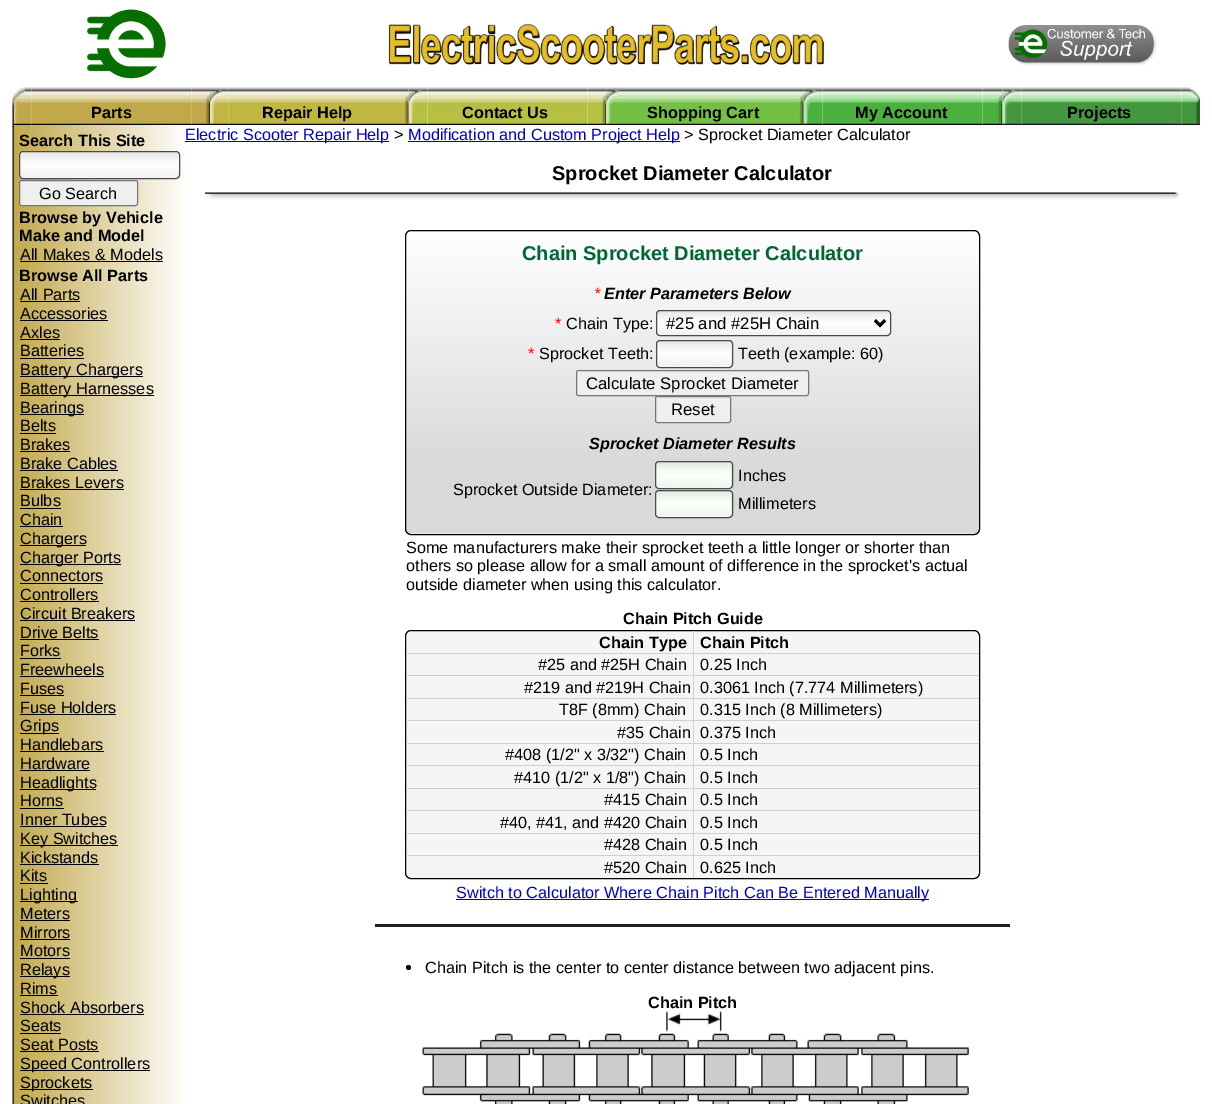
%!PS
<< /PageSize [1212 1104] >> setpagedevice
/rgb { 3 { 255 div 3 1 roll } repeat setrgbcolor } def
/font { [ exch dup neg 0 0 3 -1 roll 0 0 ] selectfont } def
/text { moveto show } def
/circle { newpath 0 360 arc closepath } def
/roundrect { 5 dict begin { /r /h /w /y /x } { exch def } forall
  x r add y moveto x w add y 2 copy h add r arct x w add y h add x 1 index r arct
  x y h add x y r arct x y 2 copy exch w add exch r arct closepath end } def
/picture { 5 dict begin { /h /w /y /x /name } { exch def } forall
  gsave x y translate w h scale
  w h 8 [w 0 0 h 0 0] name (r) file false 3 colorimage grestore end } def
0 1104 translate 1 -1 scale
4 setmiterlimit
255 255 255 rgb
0 0 1212 1104 rectfill
(img_01.rgb) 87 9 79 70 picture
(img_02.rgb) 388 23 437 42 picture
(img_03.rgb) 1008 25 149 41 picture
(img_04.rgb) 12 87 20 38 picture
(img_05.rgb) 31 87 161 38 picture
(img_06.rgb) 191 87 19 38 picture
(img_07.rgb) 210 87 19 38 picture
(img_08.rgb) 228 87 162 38 picture
(img_09.rgb) 390 87 19 38 picture
(img_10.rgb) 408 87 20 38 picture
(img_11.rgb) 427 87 161 38 picture
(img_12.rgb) 587 87 20 38 picture
(img_13.rgb) 606 87 19 38 picture
(img_14.rgb) 625 87 160 38 picture
(img_15.rgb) 785 87 19 38 picture
(img_16.rgb) 803 87 20 38 picture
(img_17.rgb) 822 87 161 38 picture
(img_18.rgb) 982 87 21 38 picture
(img_19.rgb) 1002 87 20 38 picture
(img_20.rgb) 1021 87 161 38 picture
(img_21.rgb) 1181 87 19 38 picture
(img_22.rgb) 12 125 173 979 picture
(img_23.rgb) 18 151 162 28 picture
74 74 74 rgb
19.5 151.5 160 27 3.5 roundrect stroke
239 239 239 rgb
19.5 180.5 118 25 2 roundrect gsave fill grestore
118 118 118 rgb
stroke
0 0 0 rgb
20 261 143 1 rectfill
20 301 60 1 rectfill
20 320 88 1 rectfill
20 339 40 1 rectfill
20 358 64 1 rectfill
20 376 123 1 rectfill
20 395 134 1 rectfill
20 414 64 1 rectfill
20 433 36 1 rectfill
20 451 50 1 rectfill
20 470 98 1 rectfill
20 489 104 1 rectfill
20 508 41 1 rectfill
20 526 43 1 rectfill
20 545 66 1 rectfill
20 564 101 1 rectfill
20 583 83 1 rectfill
20 601 79 1 rectfill
20 620 115 1 rectfill
20 639 79 1 rectfill
20 658 41 1 rectfill
20 676 84 1 rectfill
20 695 44 1 rectfill
20 714 96 1 rectfill
20 733 39 1 rectfill
20 751 84 1 rectfill
20 770 70 1 rectfill
20 789 76 1 rectfill
20 808 44 1 rectfill
20 826 86 1 rectfill
20 845 98 1 rectfill
20 864 79 1 rectfill
20 883 28 1 rectfill
20 901 58 1 rectfill
20 920 50 1 rectfill
20 939 50 1 rectfill
20 958 50 1 rectfill
20 976 50 1 rectfill
20 995 38 1 rectfill
20 1014 124 1 rectfill
20 1033 41 1 rectfill
20 1051 79 1 rectfill
20 1070 130 1 rectfill
20 1089 73 1 rectfill
0 0 205 rgb
185 141 204 1 rectfill
408 141 272 1 rectfill
(img_24.rgb) 205 192 974 8 picture
(img_25.rgb) 405 230 575 304 picture
0 0 0 rgb
405.5 230.5 574 304 5.5 roundrect stroke
(img_26.rgb) 656 311 234 25 picture
74 74 74 rgb
656.5 310.5 234 25 3.5 roundrect stroke
0 0 0 rgb
2.5 setlinewidth
875 320.5 moveto 5 5 rlineto 5 -5 rlineto stroke
(img_27.rgb) 656 341 76 26 picture
74 74 74 rgb
1 setlinewidth
656.5 340.5 76 27 3.5 roundrect stroke
239 239 239 rgb
576.5 370.5 232 25 2 roundrect gsave fill grestore
118 118 118 rgb
stroke
239 239 239 rgb
655.5 396.5 75 26 2 roundrect gsave fill grestore
118 118 118 rgb
stroke
(img_28.rgb) 655 462 77 27 picture
74 74 74 rgb
655.5 461.5 77 27 3.5 roundrect stroke
(img_29.rgb) 655 491 77 27 picture
655.5 490.5 77 27 3.5 roundrect stroke
245 245 245 rgb
405.5 630.5 574 248 5.5 roundrect gsave fill grestore
0 0 0 rgb
stroke
208 208 208 rgb
693 631 1 22 rectfill
406 653 573 1 rectfill
693 653 1 22 rectfill
406 675 573 1 rectfill
693 675 1 23 rectfill
406 698 573 1 rectfill
693 698 1 22 rectfill
406 720 573 1 rectfill
693 720 1 23 rectfill
406 743 573 1 rectfill
693 743 1 22 rectfill
406 765 573 1 rectfill
693 765 1 23 rectfill
406 788 573 1 rectfill
693 788 1 22 rectfill
406 810 573 1 rectfill
693 810 1 23 rectfill
406 833 573 1 rectfill
693 833 1 22 rectfill
406 855 573 1 rectfill
693 855 1 23 rectfill
0 0 205 rgb
456 899 473 1 rectfill
31 31 31 rgb
375 924 635 3 rectfill
0 0 0 rgb
408.5 967.5 2.5 circle fill
(img_30.rgb) 422 1011 547 93 picture
/LiberationSans-Bold 16.25 font
(Parts) 91 118 text
(Repair Help) 262 118 text
(Contact Us) 462 118 text
(Shopping Cart) 647 118 text
(My Account) 855 118 text
(Projects) 1067 118 text
(Search This Site) 19 146 text
/LiberationSans-Regular 16.25 font
(Go Search) 39 199 text
/LiberationSans-Bold 16.25 font
(Browse by Vehicle) 19 223 text
(Make and Model) 19 241 text
/LiberationSans-Regular 16.25 font
(All Makes & Models) 20 260 text
/LiberationSans-Bold 16.25 font
(Browse All Parts) 19 281 text
/LiberationSans-Regular 16.25 font
(All Parts) 20 300 text
(Accessories) 20 319 text
(Axles) 20 338 text
(Batteries) 20 356 text
(Battery Chargers) 20 375 text
(Battery Harnesses) 20 394 text
(Bearings) 20 413 text
(Belts) 20 431 text
(Brakes) 20 450 text
(Brake Cables) 20 469 text
(Brakes Levers) 20 488 text
(Bulbs) 20 506 text
(Chain) 20 525 text
(Chargers) 20 544 text
(Charger Ports) 20 563 text
(Connectors) 20 581 text
(Controllers) 20 600 text
(Circuit Breakers) 20 619 text
(Drive Belts) 20 638 text
(Forks) 20 656 text
(Freewheels) 20 675 text
(Fuses) 20 694 text
(Fuse Holders) 20 713 text
(Grips) 20 731 text
(Handlebars) 20 750 text
(Hardware) 20 769 text
(Headlights) 20 788 text
(Horns) 20 806 text
(Inner Tubes) 20 825 text
(Key Switches) 20 844 text
(Kickstands) 20 863 text
(Kits) 20 881 text
(Lighting) 20 900 text
(Meters) 20 919 text
(Mirrors) 20 938 text
(Motors) 20 956 text
(Relays) 20 975 text
(Rims) 20 994 text
(Shock Absorbers) 20 1013 text
(Seats) 20 1031 text
(Seat Posts) 20 1050 text
(Speed Controllers) 20 1069 text
(Sprockets) 20 1088 text
(Switches) 20 1106 text
0 0 205 rgb
(Electric Scooter Repair Help) 185 140 text
0 0 0 rgb
(>) 394 140 text
0 0 205 rgb
(Modification and Custom Project Help) 408 140 text
0 0 0 rgb
(> Sprocket Diameter Calculator) 684 140 text
/LiberationSans-Bold 20 font
(Sprocket Diameter Calculator) 552 180 text
0 102 51 rgb
(Chain Sprocket Diameter Calculator) 522 260 text
/LiberationSans-Italic 16.25 font
255 0 0 rgb
(*) 594 299 text
/LiberationSans-BoldItalic 16.25 font
0 0 0 rgb
(Enter Parameters Below) 604 299 text
/LiberationSans-Regular 16.25 font
255 0 0 rgb
(*) 555 329 text
0 0 0 rgb
(Chain Type:) 566 329 text
/LiberationSans-Regular 16.7 font
(#25 and #25H Chain) 666 329 text
/LiberationSans-Regular 16.25 font
255 0 0 rgb
(*) 528 359 text
0 0 0 rgb
(Sprocket Teeth:) 539 359 text
(Teeth \(example: 60\)) 738 359 text
/LiberationSans-Regular 16.7 font
(Calculate Sprocket Diameter) 586 389 text
(Reset) 671 415 text
/LiberationSans-BoldItalic 16.25 font
(Sprocket Diameter Results) 589 449 text
/LiberationSans-Regular 16.25 font
(Sprocket Outside Diameter:) 453 495 text
(Inches) 738 481 text
(Millimeters) 738 509 text
(Some manufacturers make their sprocket teeth a little longer or shorter than) 406 553 text
(others so please allow for a small amount of difference in the sprocket's actual) 406 571 text
(outside diameter when using this calculator.) 406 590 text
/LiberationSans-Bold 16.25 font
(Chain Pitch Guide) 623 624 text
(Chain Type) 599 648 text
(Chain Pitch) 700 648 text
/LiberationSans-Regular 16.25 font
(#25 and #25H Chain) 538 670 text
(0.25 Inch) 700 670 text
(#219 and #219H Chain) 524 693 text
(0.3061 Inch \(7.774 Millimeters\)) 700 693 text
(T8F \(8mm\) Chain) 559 715 text
(0.315 Inch \(8 Millimeters\)) 700 715 text
(#35 Chain) 617 738 text
(0.375 Inch) 700 738 text
(#408 \(1/2" x 3/32"\) Chain) 505 760 text
(0.5 Inch) 700 760 text
(#410 \(1/2" x 1/8"\) Chain) 514 783 text
(0.5 Inch) 700 783 text
(#415 Chain) 604 805 text
(0.5 Inch) 700 805 text
(#40, #41, and #420 Chain) 500 828 text
(0.5 Inch) 700 828 text
(#428 Chain) 604 850 text
(0.5 Inch) 700 850 text
(#520 Chain) 604 873 text
(0.625 Inch) 700 873 text
0 0 205 rgb
(Switch to Calculator Where Chain Pitch Can Be Entered Manually) 456 898 text
0 0 0 rgb
(Chain Pitch is the center to center distance between two adjacent pins.) 425 973 text
/LiberationSans-Bold 16.25 font
(Chain Pitch) 648 1008 text
showpage
